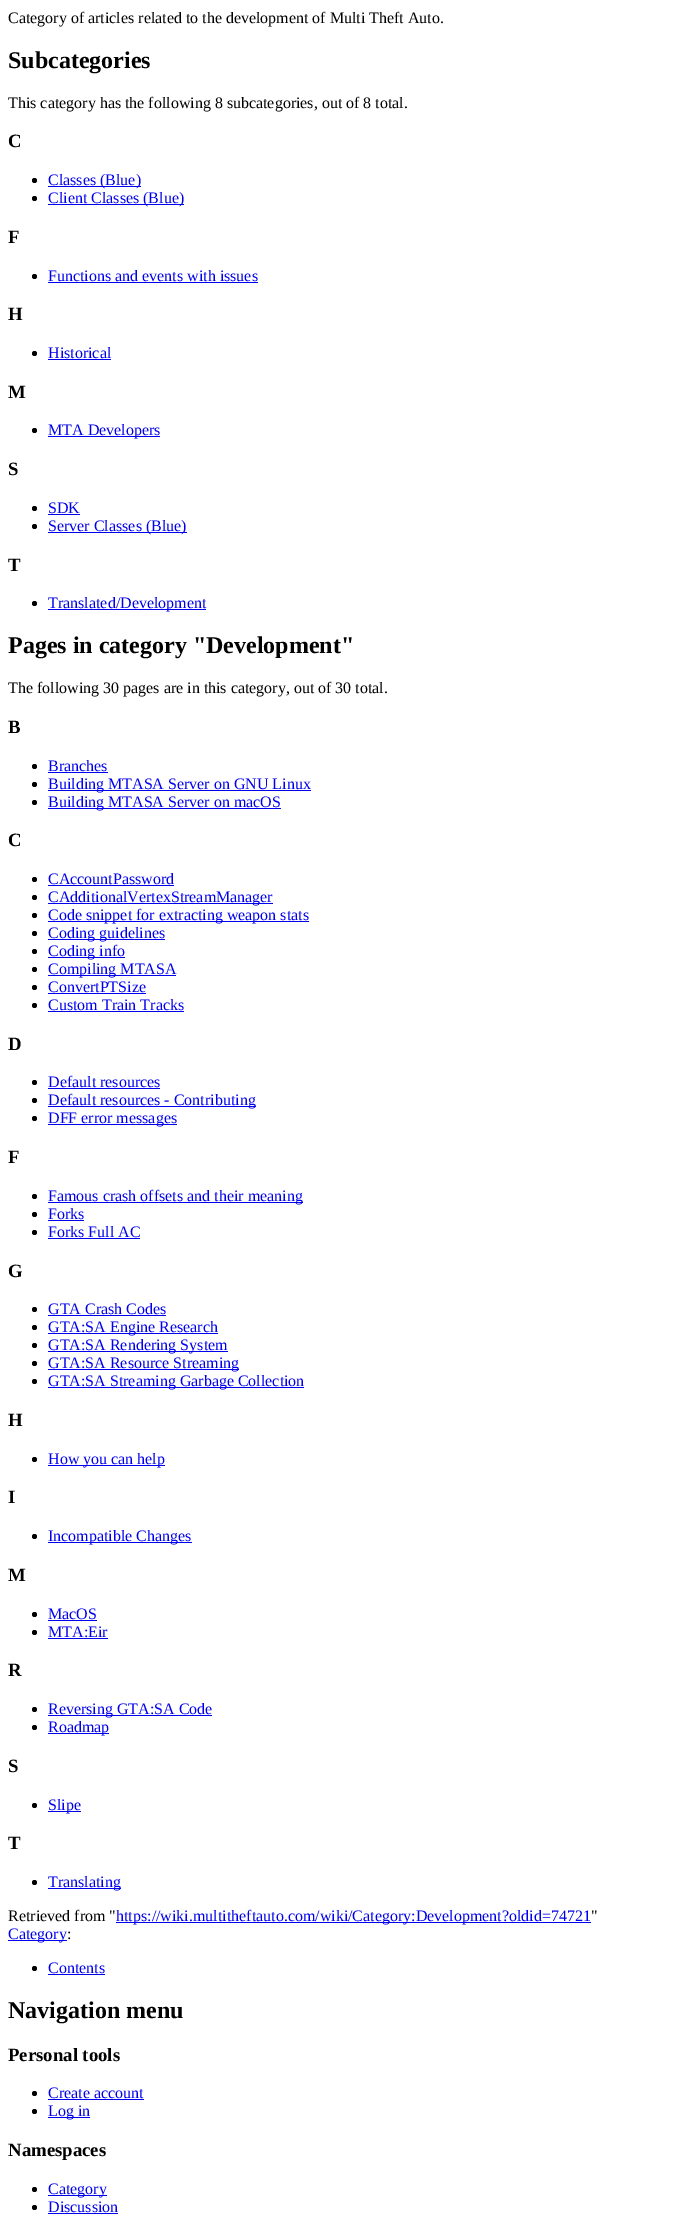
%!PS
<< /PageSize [688 2222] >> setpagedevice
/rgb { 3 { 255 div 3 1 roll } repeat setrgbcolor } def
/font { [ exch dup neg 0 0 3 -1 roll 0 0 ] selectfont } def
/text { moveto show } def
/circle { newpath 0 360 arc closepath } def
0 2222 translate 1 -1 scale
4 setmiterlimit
255 255 255 rgb
0 0 688 2222 rectfill
0 0 0 rgb
34.5 180.5 2.5 circle fill
0 0 238 rgb
48 186 93 1 rectfill
0 0 0 rgb
34.5 198.5 2.5 circle fill
0 0 238 rgb
48 204 136 1 rectfill
0 0 0 rgb
34.5 276.5 2.5 circle fill
0 0 238 rgb
48 282 210 1 rectfill
0 0 0 rgb
34.5 353.5 2.5 circle fill
0 0 238 rgb
48 359 63 1 rectfill
0 0 0 rgb
34.5 430.5 2.5 circle fill
0 0 238 rgb
48 436 112 1 rectfill
0 0 0 rgb
34.5 508.5 2.5 circle fill
0 0 238 rgb
48 514 32 1 rectfill
0 0 0 rgb
34.5 526.5 2.5 circle fill
0 0 238 rgb
48 532 139 1 rectfill
0 0 0 rgb
34.5 603.5 2.5 circle fill
0 0 238 rgb
48 609 158 1 rectfill
0 0 0 rgb
34.5 766.5 2.5 circle fill
0 0 238 rgb
48 772 60 1 rectfill
0 0 0 rgb
34.5 784.5 2.5 circle fill
0 0 238 rgb
48 790 263 1 rectfill
0 0 0 rgb
34.5 802.5 2.5 circle fill
0 0 238 rgb
48 808 233 1 rectfill
0 0 0 rgb
34.5 879.5 2.5 circle fill
0 0 238 rgb
48 885 126 1 rectfill
0 0 0 rgb
34.5 897.5 2.5 circle fill
0 0 238 rgb
48 903 225 1 rectfill
0 0 0 rgb
34.5 915.5 2.5 circle fill
0 0 238 rgb
48 921 261 1 rectfill
0 0 0 rgb
34.5 933.5 2.5 circle fill
0 0 238 rgb
48 939 117 1 rectfill
0 0 0 rgb
34.5 951.5 2.5 circle fill
0 0 238 rgb
48 957 77 1 rectfill
0 0 0 rgb
34.5 969.5 2.5 circle fill
0 0 238 rgb
48 975 128 1 rectfill
0 0 0 rgb
34.5 987.5 2.5 circle fill
0 0 238 rgb
48 993 98 1 rectfill
0 0 0 rgb
34.5 1005.5 2.5 circle fill
0 0 238 rgb
48 1011 136 1 rectfill
0 0 0 rgb
34.5 1082.5 2.5 circle fill
0 0 238 rgb
48 1088 112 1 rectfill
0 0 0 rgb
34.5 1100.5 2.5 circle fill
0 0 238 rgb
48 1106 208 1 rectfill
0 0 0 rgb
34.5 1118.5 2.5 circle fill
0 0 238 rgb
48 1124 129 1 rectfill
0 0 0 rgb
34.5 1196.5 2.5 circle fill
0 0 238 rgb
48 1202 255 1 rectfill
0 0 0 rgb
34.5 1214.5 2.5 circle fill
0 0 238 rgb
48 1220 36 1 rectfill
0 0 0 rgb
34.5 1232.5 2.5 circle fill
0 0 238 rgb
48 1238 92 1 rectfill
0 0 0 rgb
34.5 1309.5 2.5 circle fill
0 0 238 rgb
48 1315 118 1 rectfill
0 0 0 rgb
34.5 1327.5 2.5 circle fill
0 0 238 rgb
48 1333 170 1 rectfill
0 0 0 rgb
34.5 1345.5 2.5 circle fill
0 0 238 rgb
48 1351 180 1 rectfill
0 0 0 rgb
34.5 1363.5 2.5 circle fill
0 0 238 rgb
48 1369 191 1 rectfill
0 0 0 rgb
34.5 1381.5 2.5 circle fill
0 0 238 rgb
48 1387 256 1 rectfill
0 0 0 rgb
34.5 1459.5 2.5 circle fill
0 0 238 rgb
48 1465 117 1 rectfill
0 0 0 rgb
34.5 1536.5 2.5 circle fill
0 0 238 rgb
48 1542 144 1 rectfill
0 0 0 rgb
34.5 1614.5 2.5 circle fill
0 0 238 rgb
48 1620 49 1 rectfill
0 0 0 rgb
34.5 1632.5 2.5 circle fill
0 0 238 rgb
48 1638 60 1 rectfill
0 0 0 rgb
34.5 1709.5 2.5 circle fill
0 0 238 rgb
48 1715 164 1 rectfill
0 0 0 rgb
34.5 1727.5 2.5 circle fill
0 0 238 rgb
48 1733 61 1 rectfill
0 0 0 rgb
34.5 1805.5 2.5 circle fill
0 0 238 rgb
48 1811 33 1 rectfill
0 0 0 rgb
34.5 1882.5 2.5 circle fill
0 0 238 rgb
48 1888 73 1 rectfill
116 1922 475 1 rectfill
8 1940 59 1 rectfill
0 0 0 rgb
34.5 1968.5 2.5 circle fill
0 0 238 rgb
48 1974 57 1 rectfill
0 0 0 rgb
34.5 2093.5 2.5 circle fill
0 0 238 rgb
48 2099 96 1 rectfill
0 0 0 rgb
34.5 2111.5 2.5 circle fill
0 0 238 rgb
48 2117 42 1 rectfill
0 0 0 rgb
34.5 2189.5 2.5 circle fill
0 0 238 rgb
48 2195 59 1 rectfill
0 0 0 rgb
34.5 2207.5 2.5 circle fill
0 0 238 rgb
48 2213 70 1 rectfill
/LiberationSerif-Regular 16 font
0 0 0 rgb
(Category of articles related to the development of Multi Theft Auto.) 8 23 text
/LiberationSerif-Bold 24 font
(Subcategories) 8 68 text
/LiberationSerif-Regular 16 font
(This category has the following 8 subcategories, out of 8 total.) 8 108 text
/LiberationSerif-Bold 18.75 font
(C) 8 147 text
/LiberationSerif-Regular 16 font
0 0 238 rgb
(Classes \(Blue\)) 48 185 text
(Client Classes \(Blue\)) 48 203 text
/LiberationSerif-Bold 18.75 font
0 0 0 rgb
(F) 8 243 text
/LiberationSerif-Regular 16 font
0 0 238 rgb
(Functions and events with issues) 48 281 text
/LiberationSerif-Bold 18.75 font
0 0 0 rgb
(H) 8 320 text
/LiberationSerif-Regular 16 font
0 0 238 rgb
(Historical) 48 358 text
/LiberationSerif-Bold 18.75 font
0 0 0 rgb
(M) 8 398 text
/LiberationSerif-Regular 16 font
0 0 238 rgb
(MTA Developers) 48 435 text
/LiberationSerif-Bold 18.75 font
0 0 0 rgb
(S) 8 475 text
/LiberationSerif-Regular 16 font
0 0 238 rgb
(SDK) 48 513 text
(Server Classes \(Blue\)) 48 531 text
/LiberationSerif-Bold 18.75 font
0 0 0 rgb
(T) 8 571 text
/LiberationSerif-Regular 16 font
0 0 238 rgb
(Translated/Development) 48 608 text
/LiberationSerif-Bold 24 font
0 0 0 rgb
(Pages in category "Development") 8 653 text
/LiberationSerif-Regular 16 font
(The following 30 pages are in this category, out of 30 total.) 8 693 text
/LiberationSerif-Bold 18.75 font
(B) 8 733 text
/LiberationSerif-Regular 16 font
0 0 238 rgb
(Branches) 48 771 text
(Building MTASA Server on GNU Linux) 48 789 text
(Building MTASA Server on macOS) 48 807 text
/LiberationSerif-Bold 18.75 font
0 0 0 rgb
(C) 8 846 text
/LiberationSerif-Regular 16 font
0 0 238 rgb
(CAccountPassword) 48 884 text
(CAdditionalVertexStreamManager) 48 902 text
(Code snippet for extracting weapon stats) 48 920 text
(Coding guidelines) 48 938 text
(Coding info) 48 956 text
(Compiling MTASA) 48 974 text
(ConvertPTSize) 48 992 text
(Custom Train Tracks) 48 1010 text
/LiberationSerif-Bold 18.75 font
0 0 0 rgb
(D) 8 1050 text
/LiberationSerif-Regular 16 font
0 0 238 rgb
(Default resources) 48 1087 text
(Default resources - Contributing) 48 1105 text
(DFF error messages) 48 1123 text
/LiberationSerif-Bold 18.75 font
0 0 0 rgb
(F) 8 1163 text
/LiberationSerif-Regular 16 font
0 0 238 rgb
(Famous crash offsets and their meaning) 48 1201 text
(Forks) 48 1219 text
(Forks Full AC) 48 1237 text
/LiberationSerif-Bold 18.75 font
0 0 0 rgb
(G) 8 1277 text
/LiberationSerif-Regular 16 font
0 0 238 rgb
(GTA Crash Codes) 48 1314 text
(GTA:SA Engine Research) 48 1332 text
(GTA:SA Rendering System) 48 1350 text
(GTA:SA Resource Streaming) 48 1368 text
(GTA:SA Streaming Garbage Collection) 48 1386 text
/LiberationSerif-Bold 18.75 font
0 0 0 rgb
(H) 8 1426 text
/LiberationSerif-Regular 16 font
0 0 238 rgb
(How you can help) 48 1464 text
/LiberationSerif-Bold 18.75 font
0 0 0 rgb
(I) 8 1503 text
/LiberationSerif-Regular 16 font
0 0 238 rgb
(Incompatible Changes) 48 1541 text
/LiberationSerif-Bold 18.75 font
0 0 0 rgb
(M) 8 1581 text
/LiberationSerif-Regular 16 font
0 0 238 rgb
(MacOS) 48 1619 text
(MTA:Eir) 48 1637 text
/LiberationSerif-Bold 18.75 font
0 0 0 rgb
(R) 8 1676 text
/LiberationSerif-Regular 16 font
0 0 238 rgb
(Reversing GTA:SA Code) 48 1714 text
(Roadmap) 48 1732 text
/LiberationSerif-Bold 18.75 font
0 0 0 rgb
(S) 8 1772 text
/LiberationSerif-Regular 16 font
0 0 238 rgb
(Slipe) 48 1810 text
/LiberationSerif-Bold 18.75 font
0 0 0 rgb
(T) 8 1849 text
/LiberationSerif-Regular 16 font
0 0 238 rgb
(Translating) 48 1887 text
0 0 0 rgb
(Retrieved from ") 8 1921 text
0 0 238 rgb
(https://wiki.multitheftauto.com/wiki/Category:Development?oldid=74721) 116 1921 text
0 0 0 rgb
(") 591 1921 text
0 0 238 rgb
(Category) 8 1939 text
0 0 0 rgb
(:) 67 1939 text
0 0 238 rgb
(Contents) 48 1973 text
/LiberationSerif-Bold 24 font
0 0 0 rgb
(Navigation menu) 8 2018 text
/LiberationSerif-Bold 18.75 font
(Personal tools) 8 2061 text
/LiberationSerif-Regular 16 font
0 0 238 rgb
(Create account) 48 2098 text
(Log in) 48 2116 text
/LiberationSerif-Bold 18.75 font
0 0 0 rgb
(Namespaces) 8 2156 text
/LiberationSerif-Regular 16 font
0 0 238 rgb
(Category) 48 2194 text
(Discussion) 48 2212 text
showpage
